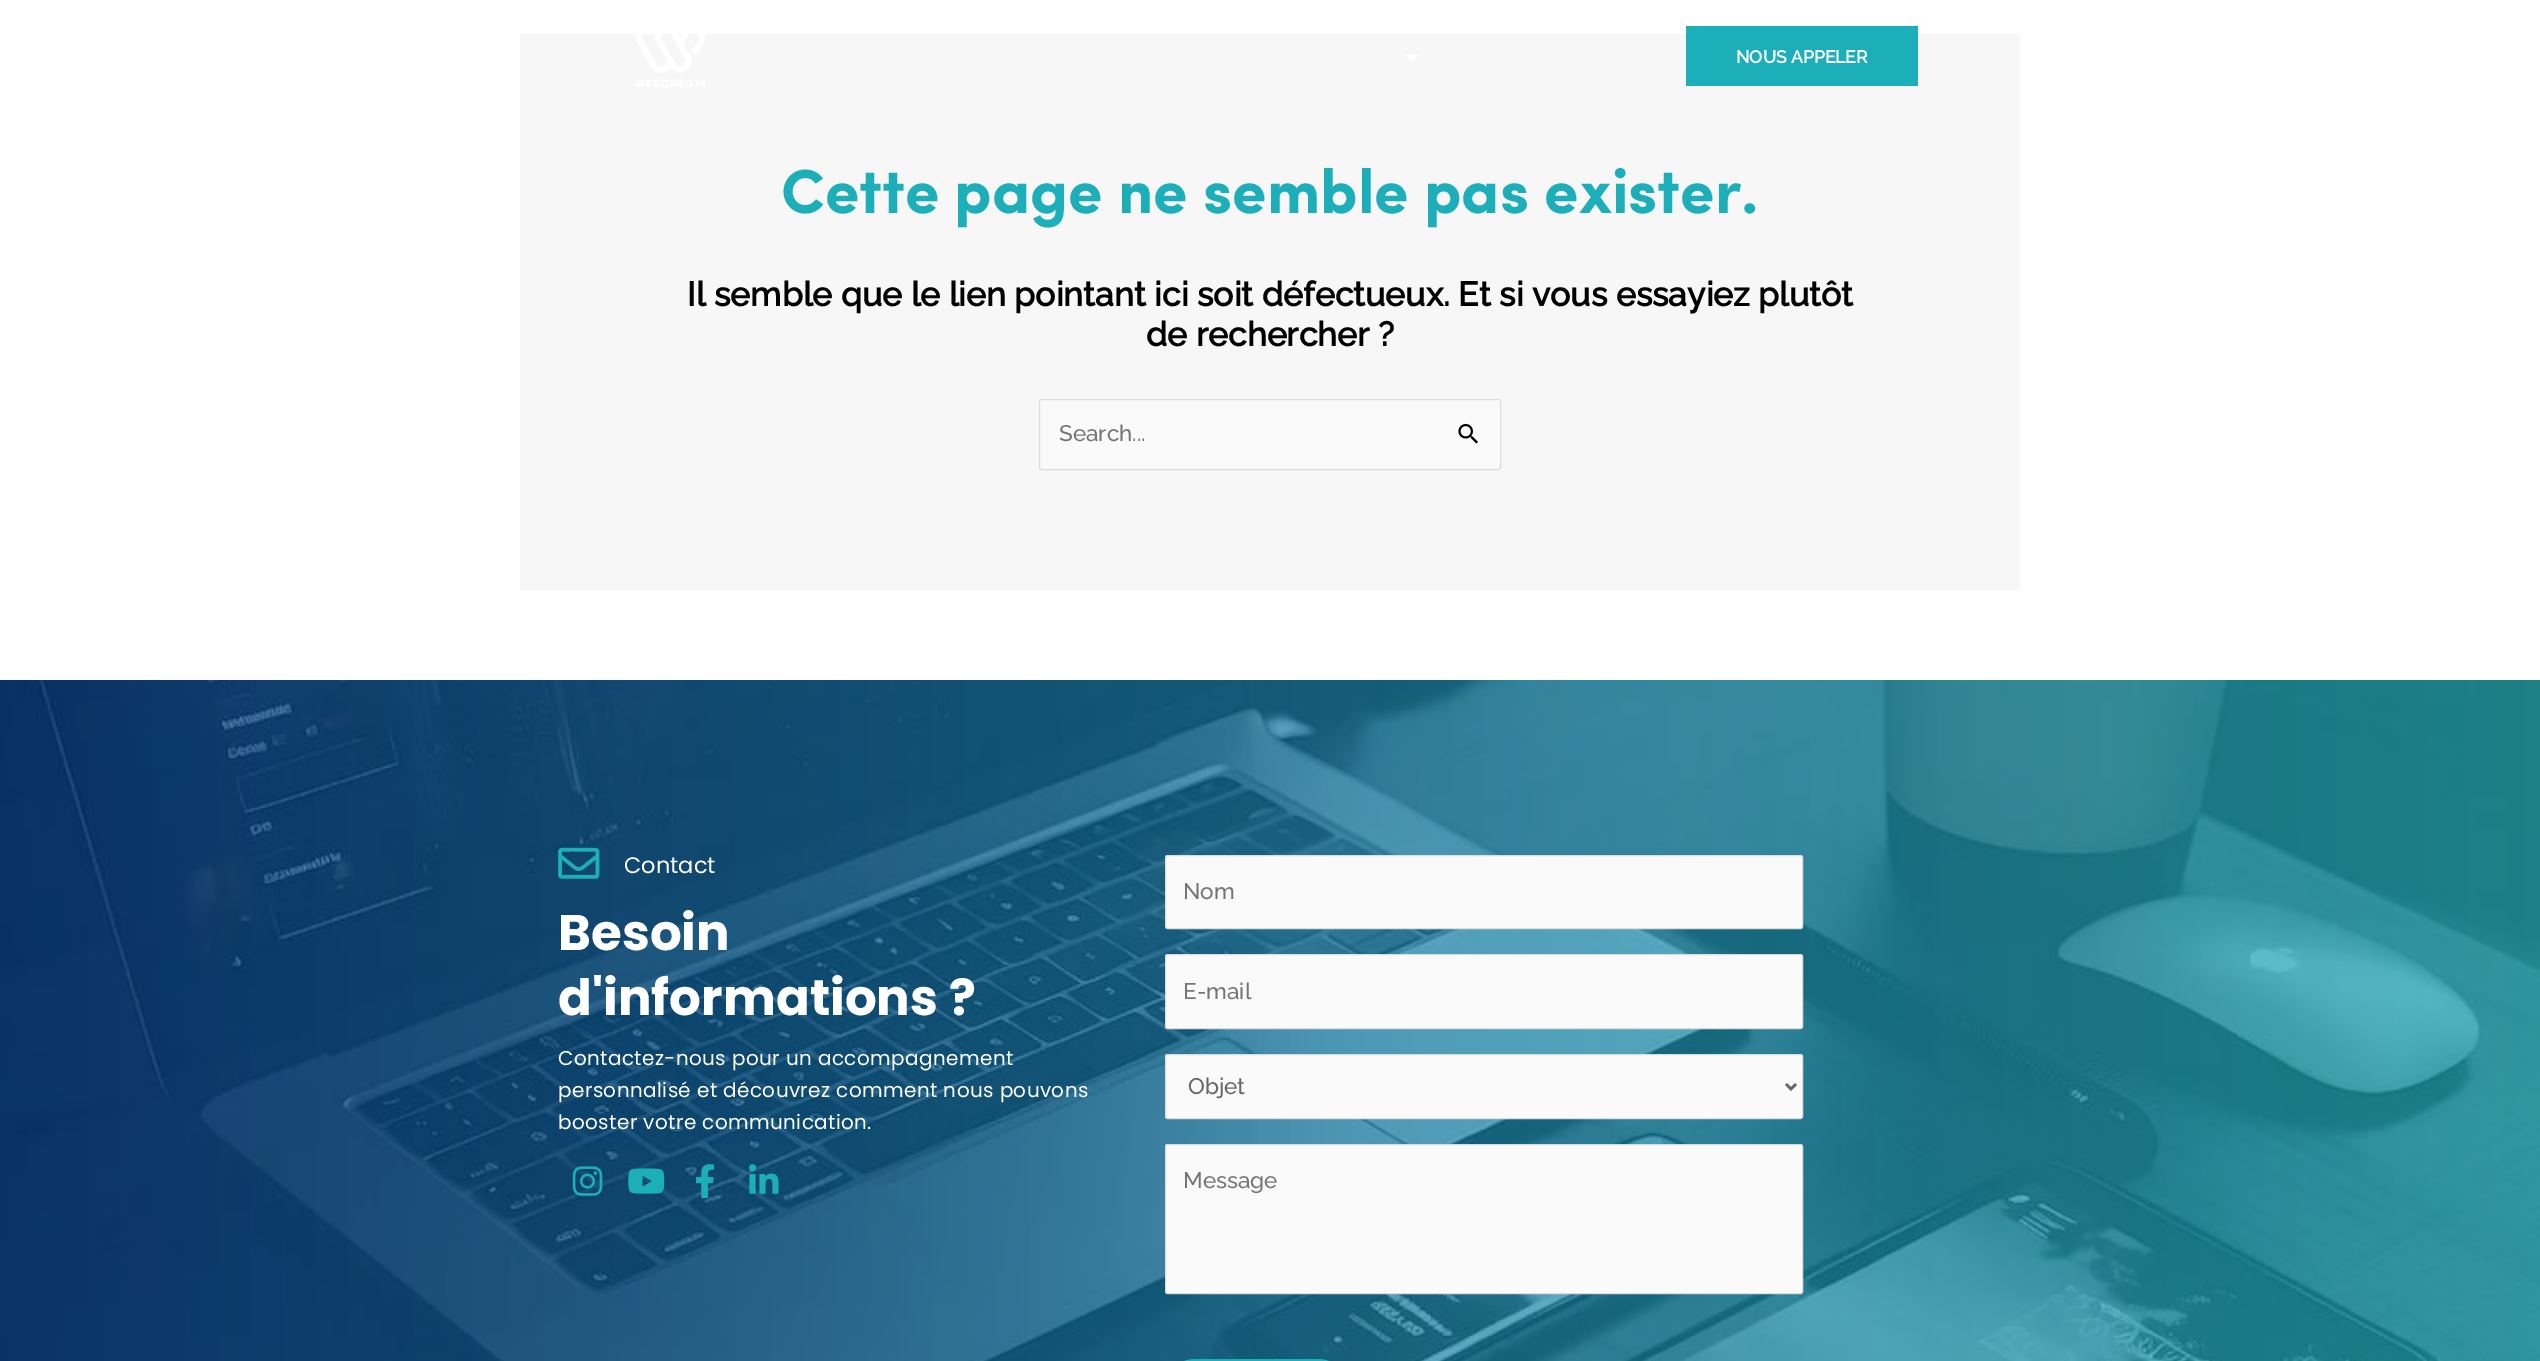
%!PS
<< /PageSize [2540 1361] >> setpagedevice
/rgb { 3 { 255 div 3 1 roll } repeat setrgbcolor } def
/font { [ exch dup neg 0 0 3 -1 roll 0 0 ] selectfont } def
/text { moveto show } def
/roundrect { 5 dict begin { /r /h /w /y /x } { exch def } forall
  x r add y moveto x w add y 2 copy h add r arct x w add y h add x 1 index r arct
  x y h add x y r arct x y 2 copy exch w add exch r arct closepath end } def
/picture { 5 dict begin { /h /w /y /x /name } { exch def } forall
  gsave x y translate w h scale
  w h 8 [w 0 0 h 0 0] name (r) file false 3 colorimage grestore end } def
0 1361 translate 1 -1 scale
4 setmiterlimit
255 255 255 rgb
0 0 2540 1361 rectfill
247 247 247 rgb
520 34 1500 556 rectfill
(img_01.rgb) 635 34 72 53 picture
(img_02.rgb) 1406 54 12 7 picture
28 175 185 rgb
1686 26 232 60 rectfill
250 250 250 rgb
1039.5 399.5 461 70 2 roundrect gsave fill grestore
221 221 221 rgb
stroke
(img_03.rgb) 1458 423 20 21 picture
(img_04.rgb) 0 680 2540 681 picture
(img_05.rgb) 558 847 42 32 picture
(img_06.rgb) 572 1166 31 30 picture
(img_07.rgb) 628 1168 37 26 picture
(img_08.rgb) 696 1164 18 34 picture
(img_09.rgb) 749 1164 30 30 picture
250 250 250 rgb
1165.5 855.5 637 73 2 roundrect gsave fill grestore
221 221 221 rgb
stroke
250 250 250 rgb
1165.5 954.5 637 74 2 roundrect gsave fill grestore
221 221 221 rgb
stroke
250 250 250 rgb
1165.5 1054.5 637 64 2 roundrect gsave fill grestore
221 221 221 rgb
stroke
102 102 102 rgb
2.5 setlinewidth
1786 1084 moveto 5 5 rlineto 5 -5 rlineto stroke
250 250 250 rgb
1165.5 1144.5 637 149 2 roundrect gsave fill grestore
221 221 221 rgb
1 setlinewidth
stroke
28 175 185 rgb
1165 1359 183 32 30 roundrect fill
/Raleway-Bold 17.5 font
255 255 255 rgb
(NOUS APPELER) 1736 63 text
/Sofia-Bold 62.5 font
28 175 185 rgb
(Cette page ne semble pas exister.) 781 213 text
/Raleway-Bold 33.75 font
0 0 0 rgb
(Il semble que le lien pointant ici soit défectueux. Et si vous essayiez plutôt) 687 306 text
(de rechercher ?) 1146 346 text
/Raleway-Thin 22.5 font
117 117 117 rgb
(Search...) 1059 441 text
/Poppins-Regular 22.5 font
255 255 255 rgb
(Contact) 624 873 text
/Poppins-Bold 50 font
(Besoin) 558 950 text
(d'informations ?) 558 1015 text
/Poppins-Regular 20 font
558 1065 moveto 0.4 0 (Contactez-nous pour un accompagnement) ashow
558 1097 moveto 0.4 0 (personnalisé et découvrez comment nous pouvons) ashow
558 1129 moveto 0.4 0 (booster votre communication.) ashow
/Raleway-Thin 22.5 font
117 117 117 rgb
(Nom) 1183 899 text
(E-mail) 1183 999 text
102 102 102 rgb
(Objet) 1188 1094 text
117 117 117 rgb
(Message) 1183 1188 text
showpage
